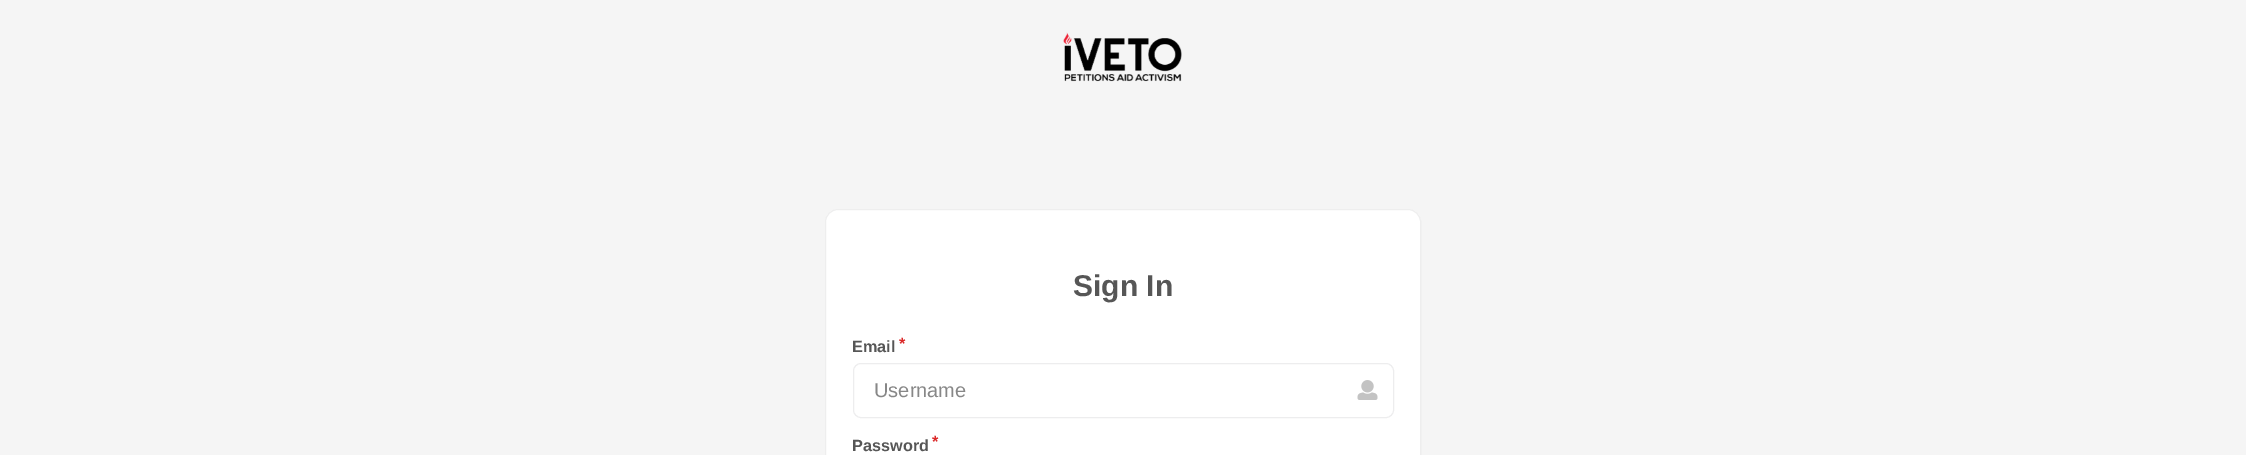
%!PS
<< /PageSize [2246 455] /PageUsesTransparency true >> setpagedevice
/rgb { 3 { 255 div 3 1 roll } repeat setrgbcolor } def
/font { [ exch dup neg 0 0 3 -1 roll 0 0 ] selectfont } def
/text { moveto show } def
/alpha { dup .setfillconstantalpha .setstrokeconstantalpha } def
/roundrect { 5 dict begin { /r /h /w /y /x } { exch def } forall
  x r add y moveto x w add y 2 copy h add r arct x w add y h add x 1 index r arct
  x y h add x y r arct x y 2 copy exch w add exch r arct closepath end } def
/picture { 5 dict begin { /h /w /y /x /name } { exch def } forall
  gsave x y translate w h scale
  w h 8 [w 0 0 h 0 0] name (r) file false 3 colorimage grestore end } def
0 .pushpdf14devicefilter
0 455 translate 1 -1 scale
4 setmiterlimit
245 245 245 rgb
0 0 2246 455 rectfill
(img_01.rgb) 1063 32 119 50 picture
255 255 255 rgb
825 209 596 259 13 roundrect fill
0.08 alpha
34 36 38 rgb
825.5 209.5 595 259 12.5 roundrect stroke
1 alpha
237 237 238 rgb
853.5 363.5 540 54 7.5 roundrect stroke
(img_02.rgb) 1357 380 21 20 picture
/LiberationSans-Bold 30 font
86 86 86 rgb
(Sign In) 1073 296 text
/LiberationSans-Bold 16.25 font
(Email) 852 352 text
219 40 40 rgb
(*) 899 349 text
/LiberationSans-Regular 20 font
135 135 135 rgb
(Username) 874 397 text
/LiberationSans-Bold 16.25 font
86 86 86 rgb
(Password) 852 451 text
219 40 40 rgb
(*) 932 447 text
.poppdf14devicefilter showpage
